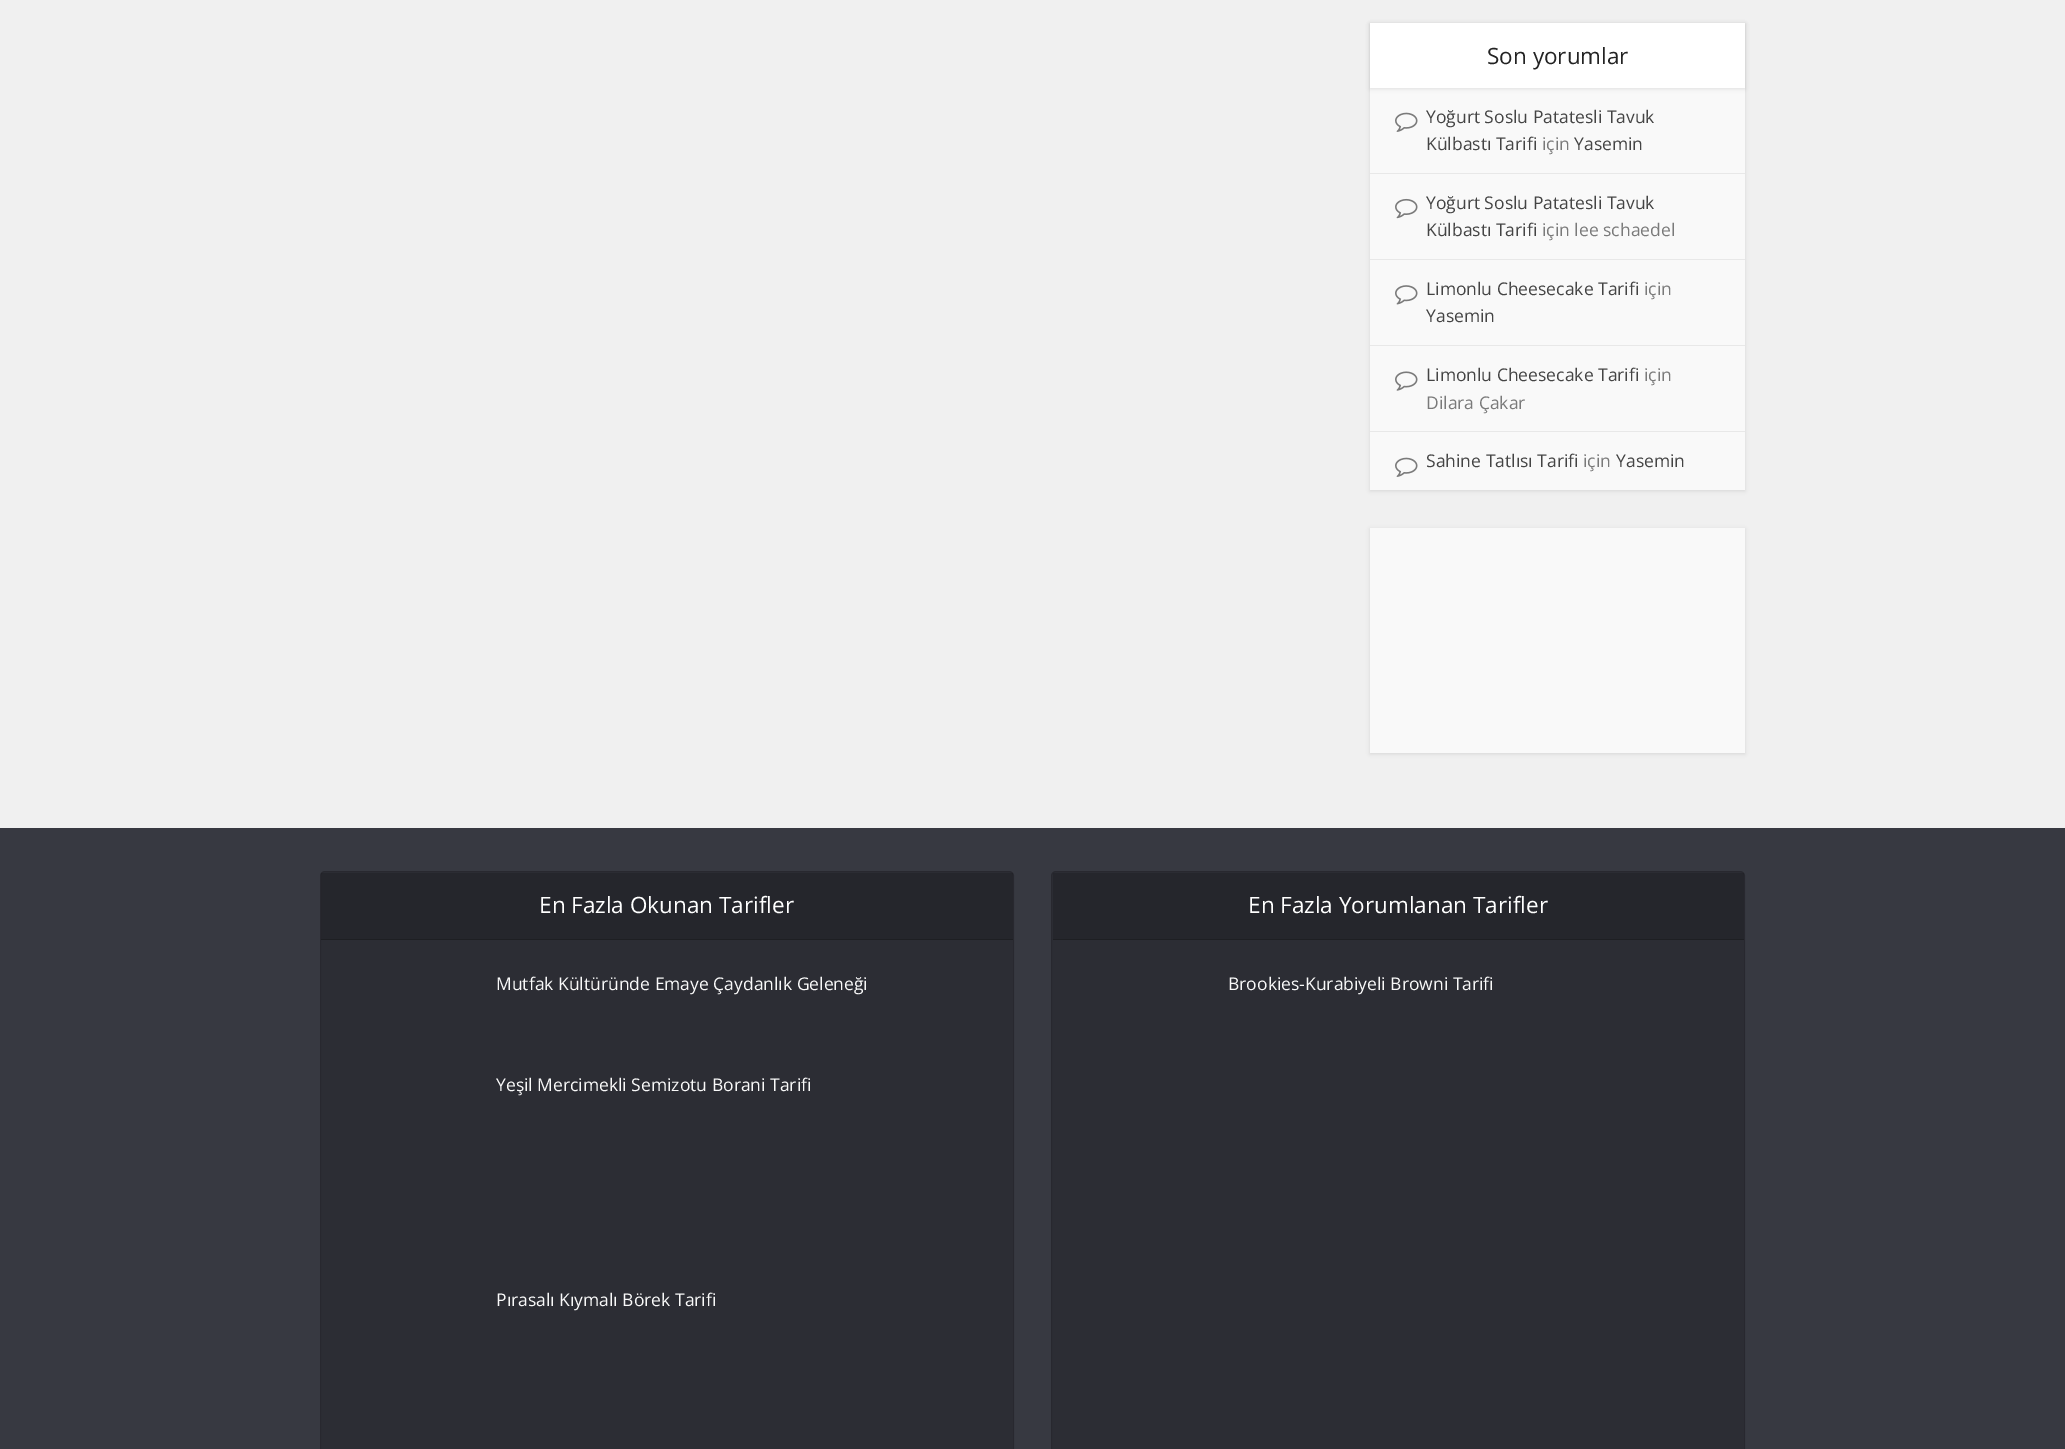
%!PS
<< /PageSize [2065 1449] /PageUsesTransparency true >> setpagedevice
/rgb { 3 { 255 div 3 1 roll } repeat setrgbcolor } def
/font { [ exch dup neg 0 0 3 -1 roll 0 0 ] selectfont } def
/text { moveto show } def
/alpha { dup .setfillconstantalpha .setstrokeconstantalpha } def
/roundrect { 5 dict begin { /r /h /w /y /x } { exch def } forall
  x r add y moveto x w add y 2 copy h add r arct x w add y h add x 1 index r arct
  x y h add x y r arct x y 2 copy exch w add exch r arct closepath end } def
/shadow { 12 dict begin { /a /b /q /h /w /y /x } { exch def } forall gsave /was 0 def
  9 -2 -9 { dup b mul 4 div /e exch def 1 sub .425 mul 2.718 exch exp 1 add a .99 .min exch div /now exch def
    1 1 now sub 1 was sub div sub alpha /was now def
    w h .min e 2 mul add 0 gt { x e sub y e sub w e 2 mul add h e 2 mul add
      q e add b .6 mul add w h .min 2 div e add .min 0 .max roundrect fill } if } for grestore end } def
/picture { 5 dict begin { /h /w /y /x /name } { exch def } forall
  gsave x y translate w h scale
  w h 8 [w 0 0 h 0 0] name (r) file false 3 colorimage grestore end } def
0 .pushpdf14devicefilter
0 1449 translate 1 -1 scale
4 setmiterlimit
240 240 240 rgb
0 0 2065 1449 rectfill
0 0 0 rgb
1370 24 375 467 0 2 0.1 shadow
249 249 249 rgb
1370 88 375 402 rectfill
0 0 0 rgb
1370 24 375 65 0 2 0.1 shadow
255 255 255 rgb
1370 23 375 65 rectfill
232 232 232 rgb
1370 173 375 1 rectfill
(img_01.rgb) 1395 112 23 20 picture
1370 259 375 1 rectfill
(img_02.rgb) 1395 198 23 21 picture
1370 345 375 1 rectfill
(img_03.rgb) 1395 285 23 20 picture
1370 431 375 1 rectfill
(img_04.rgb) 1395 371 23 20 picture
(img_01.rgb) 1395 457 23 20 picture
0 0 0 rgb
1370 529 375 225 0 2 0.1 shadow
249 249 249 rgb
1370 528 375 225 rectfill
55 57 65 rgb
0 828 2065 621 rectfill
44 45 52 rgb
320 871 694 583 5 roundrect fill
0.1 alpha
0 0 0 rgb
320.5 871.5 693 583 4.5 roundrect stroke
0.15 alpha
321 873 692 66 rectfill
1 alpha
30 31 35 rgb
321 939 692 1 rectfill
44 45 52 rgb
1051 871 694 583 5 roundrect fill
0.1 alpha
0 0 0 rgb
1051.5 871.5 693 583 4.5 roundrect stroke
0.15 alpha
1053 873 691 66 rectfill
1 alpha
30 31 35 rgb
1053 939 691 1 rectfill
/OpenSans-Regular 22.5 font
35 35 35 rgb
(Son yorumlar) 1487 64 text
/OpenSans-Regular 17.5 font
68 68 68 rgb
(Yoğurt Soslu Patatesli Tavuk) 1426 123 text
(Külbastı Tarifi) 1426 150 text
122 122 122 rgb
(için) 1542 150 text
68 68 68 rgb
(Yasemin) 1574 150 text
(Yoğurt Soslu Patatesli Tavuk) 1426 209 text
(Külbastı Tarifi) 1426 236 text
122 122 122 rgb
(için lee schaedel) 1542 236 text
68 68 68 rgb
(Limonlu Cheesecake Tarifi) 1426 295 text
122 122 122 rgb
(için) 1644 295 text
68 68 68 rgb
(Yasemin) 1426 322 text
(Limonlu Cheesecake Tarifi) 1426 381 text
122 122 122 rgb
(için) 1644 381 text
(Dilara Çakar) 1426 409 text
68 68 68 rgb
(Sahine Tatlısı Tarifi) 1426 467 text
122 122 122 rgb
(için) 1583 467 text
68 68 68 rgb
(Yasemin) 1616 467 text
/OpenSans-Regular 22.5 font
255 255 255 rgb
(En Fazla Okunan Tarifler) 539 913 text
/OpenSans-Regular 17.5 font
249 249 249 rgb
(Mutfak Kültüründe Emaye Çaydanlık Geleneği) 496 990 text
(Yeşil Mercimekli Semizotu Borani Tarifi) 496 1091 text
(Pırasalı Kıymalı Börek Tarifi) 496 1306 text
/OpenSans-Regular 22.5 font
255 255 255 rgb
(En Fazla Yorumlanan Tarifler) 1248 913 text
/OpenSans-Regular 17.5 font
249 249 249 rgb
(Brookies-Kurabiyeli Browni Tarifi) 1228 990 text
.poppdf14devicefilter showpage
